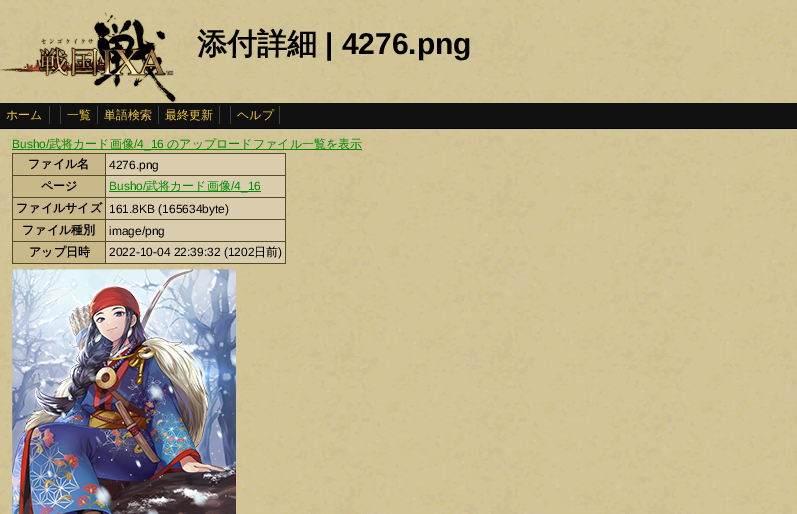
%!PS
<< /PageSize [797 514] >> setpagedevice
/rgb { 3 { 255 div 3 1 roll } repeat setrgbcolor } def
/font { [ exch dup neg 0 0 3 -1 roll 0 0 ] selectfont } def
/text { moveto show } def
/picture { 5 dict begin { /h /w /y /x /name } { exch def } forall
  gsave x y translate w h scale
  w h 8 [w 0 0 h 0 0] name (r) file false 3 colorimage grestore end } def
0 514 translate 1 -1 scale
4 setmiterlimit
255 255 255 rgb
0 0 797 514 rectfill
(img_01.rgb) 0 0 797 514 picture
(img_02.rgb) 0 12 177 91 picture
16 16 16 rgb
0 103 797 25 rectfill
64 64 64 rgb
49 106 1 18 rectfill
60 106 1 18 rectfill
97 106 1 18 rectfill
158 106 1 18 rectfill
219 106 1 18 rectfill
230 106 1 18 rectfill
279 106 1 18 rectfill
0 0 0 rgb
0 128 797 1 rectfill
0 136 0 rgb
12 149 350 1 rectfill
87 73 40 rgb
12 153 274 111 rectfill
201 184 137 rgb
13 154 92 21 rectfill
218 205 173 rgb
106 154 179 21 rectfill
201 184 137 rgb
13 176 92 21 rectfill
218 205 173 rgb
106 176 179 21 rectfill
0 136 0 rgb
109 191 152 1 rectfill
201 184 137 rgb
13 198 92 21 rectfill
218 205 173 rgb
106 198 179 21 rectfill
201 184 137 rgb
13 220 92 21 rectfill
218 205 173 rgb
106 220 179 21 rectfill
201 184 137 rgb
13 242 92 21 rectfill
218 205 173 rgb
106 242 179 21 rectfill
(img_03.rgb) 12 269 224 245 picture
/WenQuanYiZenHei-Bold 30 font
0 0 0 rgb
(添付詳細) 197 54 text
/LiberationSans-Bold 30 font
(| 4276.png) 325 54 text
/WenQuanYiZenHei-Medium 12 font
240 200 61 rgb
(ホーム) 6 119 text
(一覧) 67 119 text
(単語検索) 104 119 text
(最終更新) 165 119 text
(ヘルプ) 237 119 text
/LiberationSans-Regular 12 font
0 136 0 rgb
(Busho/) 12 148 text
/WenQuanYiZenHei-Medium 12 font
(武将カード画像) 49 148 text
/LiberationSans-Regular 12 font
(/4_16) 134 148 text
/WenQuanYiZenHei-Medium 12 font
(のアップロードファイル一覧を表示) 167 148 text
/WenQuanYiZenHei-Bold 12 font
0 0 0 rgb
(ファイル名) 28 168 text
/LiberationSans-Regular 12 font
(4276.png) 109 169 text
/WenQuanYiZenHei-Bold 12 font
(ページ) 41 190 text
/LiberationSans-Regular 12 font
0 136 0 rgb
(Busho/) 109 190 text
/WenQuanYiZenHei-Medium 12 font
(武将カード画像) 146 190 text
/LiberationSans-Regular 12 font
(/4_16) 231 190 text
/WenQuanYiZenHei-Bold 12 font
0 0 0 rgb
(ファイルサイズ) 16 212 text
/LiberationSans-Regular 12 font
(161.8KB \(165634byte\)) 109 213 text
/WenQuanYiZenHei-Bold 12 font
(ファイル種別) 22 234 text
/LiberationSans-Regular 12 font
(image/png) 109 235 text
/WenQuanYiZenHei-Bold 12 font
(アップ日時) 29 256 text
/LiberationSans-Regular 12 font
(2022-10-04 22:39:32 \(1202) 109 256 text
/WenQuanYiZenHei-Medium 12 font
(日前) 254 256 text
/LiberationSans-Regular 12 font
(\)) 278 256 text
showpage
